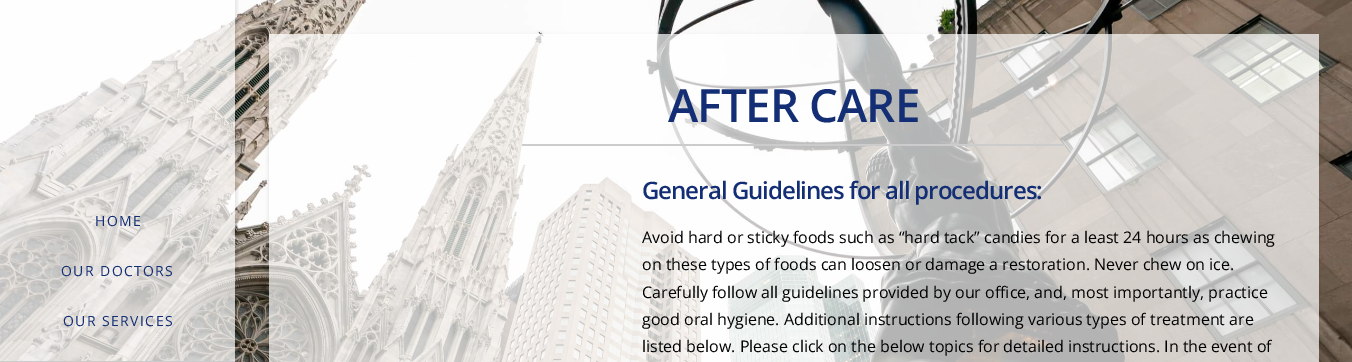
%!PS
<< /PageSize [1352 362] /PageUsesTransparency true >> setpagedevice
/rgb { 3 { 255 div 3 1 roll } repeat setrgbcolor } def
/font { [ exch dup neg 0 0 3 -1 roll 0 0 ] selectfont } def
/text { moveto show } def
/alpha { dup .setfillconstantalpha .setstrokeconstantalpha } def
/roundrect { 5 dict begin { /r /h /w /y /x } { exch def } forall
  x r add y moveto x w add y 2 copy h add r arct x w add y h add x 1 index r arct
  x y h add x y r arct x y 2 copy exch w add exch r arct closepath end } def
/shadow { 12 dict begin { /a /b /q /h /w /y /x } { exch def } forall gsave /was 0 def
  9 -2 -9 { dup b mul 4 div /e exch def 1 sub .425 mul 2.718 exch exp 1 add a .99 .min exch div /now exch def
    1 1 now sub 1 was sub div sub alpha /was now def
    w h .min e 2 mul add 0 gt { x e sub y e sub w e 2 mul add h e 2 mul add
      q e add b .6 mul add w h .min 2 div e add .min 0 .max roundrect fill } if } for grestore end } def
/picture { 5 dict begin { /h /w /y /x /name } { exch def } forall
  gsave x y translate w h scale
  w h 8 [w 0 0 h 0 0] name (r) file false 3 colorimage grestore end } def
0 .pushpdf14devicefilter
0 362 translate 1 -1 scale
4 setmiterlimit
255 255 255 rgb
0 0 1352 362 rectfill
(img_01.rgb) 0 0 1352 362 picture
gsave
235 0 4 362 rectclip
0 0 0 rgb
2 0 235 362 0 2 0.1 shadow
grestore
0.7 alpha
0 0 235 361 rectfill
1 alpha
204 204 204 rgb
0 361 235 1 rectfill
gsave
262 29 moveto 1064 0 rlineto 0 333 rlineto -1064 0 rlineto closepath 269 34 moveto 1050 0 rlineto 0 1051 rlineto -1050 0 rlineto closepath eoclip newpath
0 0 0 rgb
269 36 1050 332 0 2 0.12 shadow
grestore
0.7 alpha
255 255 255 rgb
269 34 1050 328 rectfill
1 alpha
204 204 204 rgb
522 144 543 2 rectfill
/OpenSans-Regular 14 font
19 46 116 rgb
95 226 moveto 1.4 0 (HOME) ashow
61 276 moveto 1.4 0 (OUR DOCTORS) ashow
63 326 moveto 1.4 0 (OUR SERVICES) ashow
/OpenSans-SemiBold 45.75 font
668 122 moveto -1 0 (AFTER CARE) ashow
/OpenSans-SemiBold 24 font
642 199 moveto -1 0 (General Guidelines for all procedures:) ashow
/OpenSans-Regular 16 font
0 0 0 rgb
(Avoid hard or sticky foods such as “hard tack” candies for a least 24 hours as chewing) 642 243 text
(on these types of foods can loosen or damage a restoration. Never chew on ice.) 642 270 text
(Carefully follow all guidelines provided by our office, and, most importantly, practice) 642 298 text
(good oral hygiene. Additional instructions following various types of treatment are) 642 325 text
(listed below. Please click on the below topics for detailed instructions. In the event of) 642 352 text
.poppdf14devicefilter showpage
